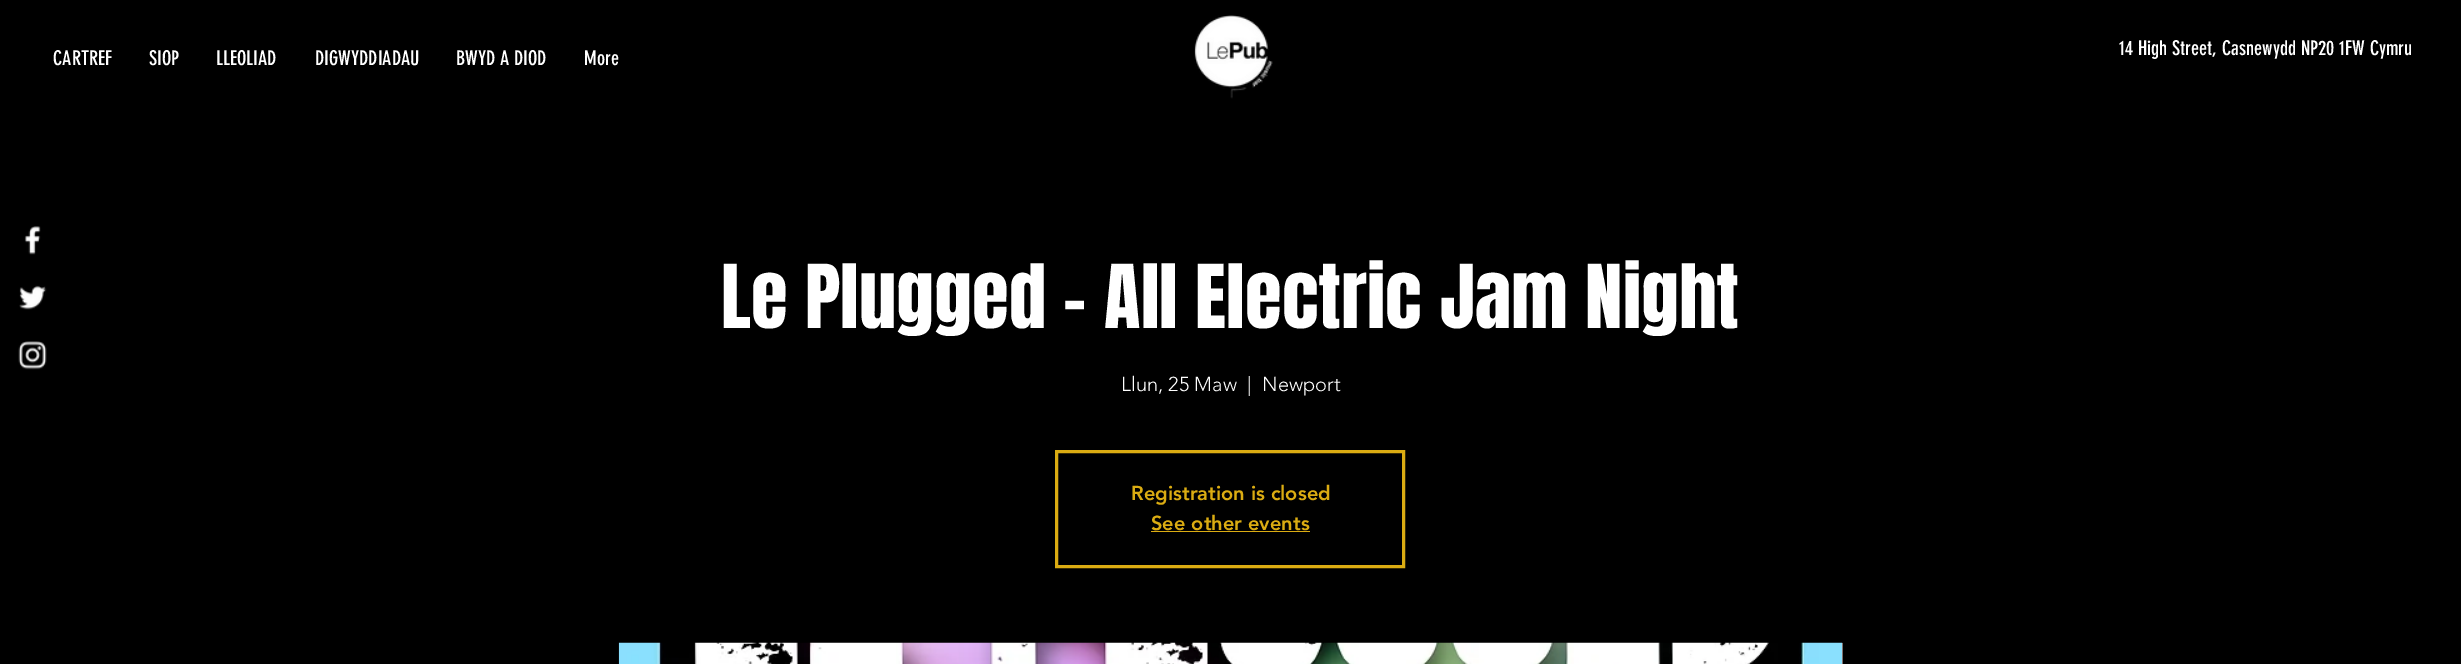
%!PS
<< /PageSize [2461 664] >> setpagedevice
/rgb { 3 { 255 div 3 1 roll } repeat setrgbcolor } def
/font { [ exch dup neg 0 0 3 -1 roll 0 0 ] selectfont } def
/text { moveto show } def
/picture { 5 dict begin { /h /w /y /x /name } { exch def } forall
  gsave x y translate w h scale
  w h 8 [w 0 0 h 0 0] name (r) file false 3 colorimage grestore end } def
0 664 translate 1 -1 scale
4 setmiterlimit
0 0 0 rgb
0 0 2461 664 rectfill
(img_01.rgb) 1194 15 79 84 picture
(img_02.rgb) 24 226 17 29 picture
(img_03.rgb) 19 285 28 25 picture
(img_04.rgb) 18 341 29 29 picture
219 172 18 rgb
3 setlinewidth
1056.5 451.5 347 115 rectstroke
1151 531 159 1 rectfill
126 76 61 rgb
1842 643 1 21 rectfill
(img_05.rgb) 618 642 1225 22 picture
/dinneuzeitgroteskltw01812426-Regular 20 font
255 255 255 rgb
(CARTREF) 53 65 text
(SIOP) 149 65 text
(LLEOLIAD) 216 65 text
(DIGWYDDIADAU) 315 65 text
(BWYD A DIOD) 456 65 text
(More) 584 65 text
(14 High Street, Casnewydd NP20 1FW Cymru) 2119 55 text
/Anton-Regular 75 font
(Le Plugged - All Electric Jam Night) 721 328 text
/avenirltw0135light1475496-Light 20 font
(Llun, 25 Maw) 1121 391 text
(|) 1247 391 text
(Newport) 1262 391 text
/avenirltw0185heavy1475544-Black 20 font
219 172 18 rgb
(Registration is closed) 1131 500 text
(See other events) 1151 530 text
showpage
